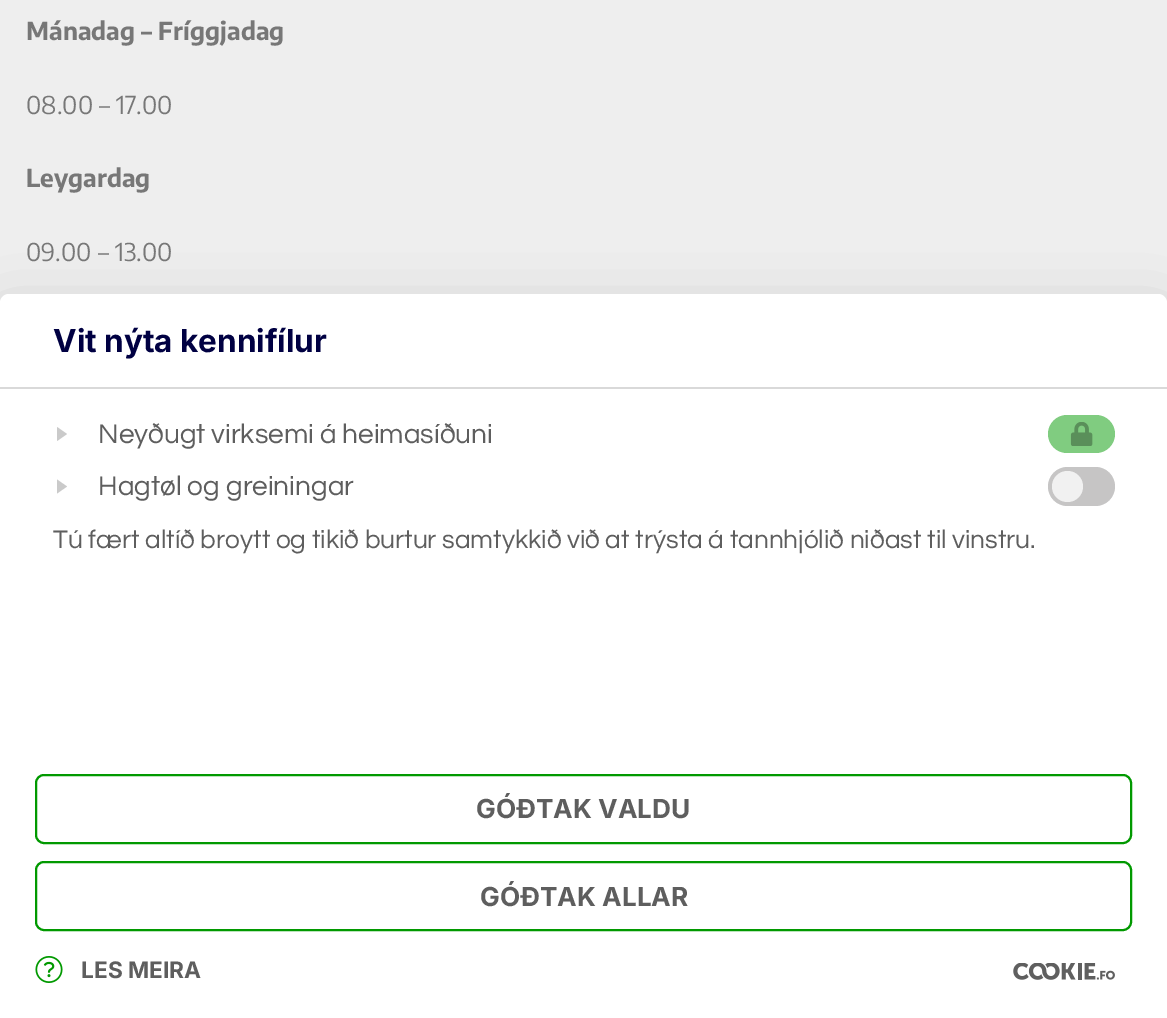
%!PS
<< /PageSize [1167 1018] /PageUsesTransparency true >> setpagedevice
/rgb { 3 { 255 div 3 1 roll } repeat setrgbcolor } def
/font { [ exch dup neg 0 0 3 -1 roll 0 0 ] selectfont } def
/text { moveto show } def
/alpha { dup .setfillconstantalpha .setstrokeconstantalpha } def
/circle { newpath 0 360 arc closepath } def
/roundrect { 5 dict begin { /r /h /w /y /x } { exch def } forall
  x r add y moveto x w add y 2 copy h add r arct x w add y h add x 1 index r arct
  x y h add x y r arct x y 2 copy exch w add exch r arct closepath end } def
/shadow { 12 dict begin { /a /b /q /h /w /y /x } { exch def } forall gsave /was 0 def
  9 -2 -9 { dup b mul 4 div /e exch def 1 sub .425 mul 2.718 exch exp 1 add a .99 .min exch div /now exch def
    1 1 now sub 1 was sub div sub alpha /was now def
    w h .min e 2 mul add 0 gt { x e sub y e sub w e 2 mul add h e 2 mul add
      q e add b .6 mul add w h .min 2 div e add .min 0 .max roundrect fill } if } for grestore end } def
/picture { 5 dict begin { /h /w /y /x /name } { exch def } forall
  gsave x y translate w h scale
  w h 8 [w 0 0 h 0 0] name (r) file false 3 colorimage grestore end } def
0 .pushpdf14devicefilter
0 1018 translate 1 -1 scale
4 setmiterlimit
238 238 238 rgb
0 0 1167 1018 rectfill
0 0 0 rgb
0 327 1167 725 9 33 0.3 shadow
255 255 255 rgb
9 294 moveto 1149 0 rlineto 5 0 9 4 9 9 rcurveto 0 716 rlineto -1167 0 rlineto 0 -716 rlineto 0 -5 4 -9 9 -9 rcurveto closepath fill
217 217 217 rgb
0 387 1167 2 rectfill
202 202 202 rgb
57 427 moveto 10 7 rlineto -10 7 rlineto closepath fill
128 204 128 rgb
1048 415 67 38 19 roundrect fill
(img_01.rgb) 1070 422 23 24 picture
202 202 202 rgb
57 479.5 moveto 10 7 rlineto -10 7 rlineto closepath fill
198 197 197 rgb
1048 467 67 39 19.5 roundrect fill
241 241 241 rgb
1067.5 486.5 15.5 circle fill
1 153 0 rgb
2 setlinewidth
36 775 1095 68 8 roundrect stroke
36 862 1095 68 8 roundrect stroke
(img_02.rgb) 35 956 28 27 picture
(img_03.rgb) 1013 963 102 17 picture
/EncodeSansCondensed-Bold 24.5 font
119 119 119 rgb
(Mánadag – Fríggjadag) 26 40 text
/EncodeSansCondensed-Regular 24.5 font
(08.00 – 17.00) 26 114 text
/EncodeSansCondensed-Bold 24.5 font
(Leygardag) 26 187 text
/EncodeSansCondensed-Regular 24.5 font
(09.00 – 13.00) 26 261 text
/Inter-Bold 31.5 font
0 0 66 rgb
(Vit nýta kennifílur) 53 352 text
/Questrial-Regular 28 font
94 94 94 rgb
(Neyðugt virksemi á heimasíðuni) 98 443 text
(Hagtøl og greiningar) 98 495 text
/Questrial-Regular 26.25 font
(Tú fært altíð broytt og tikið burtur samtykkið við at trýsta á tannhjólið niðast til vinstru.) 53 548 text
/Inter-Bold 26.25 font
(GÓÐTAK VALDU) 476 818 text
(GÓÐTAK ALLAR) 480 906 text
/Inter-Bold 22.75 font
(LES MEIRA) 81 978 text
.poppdf14devicefilter showpage
